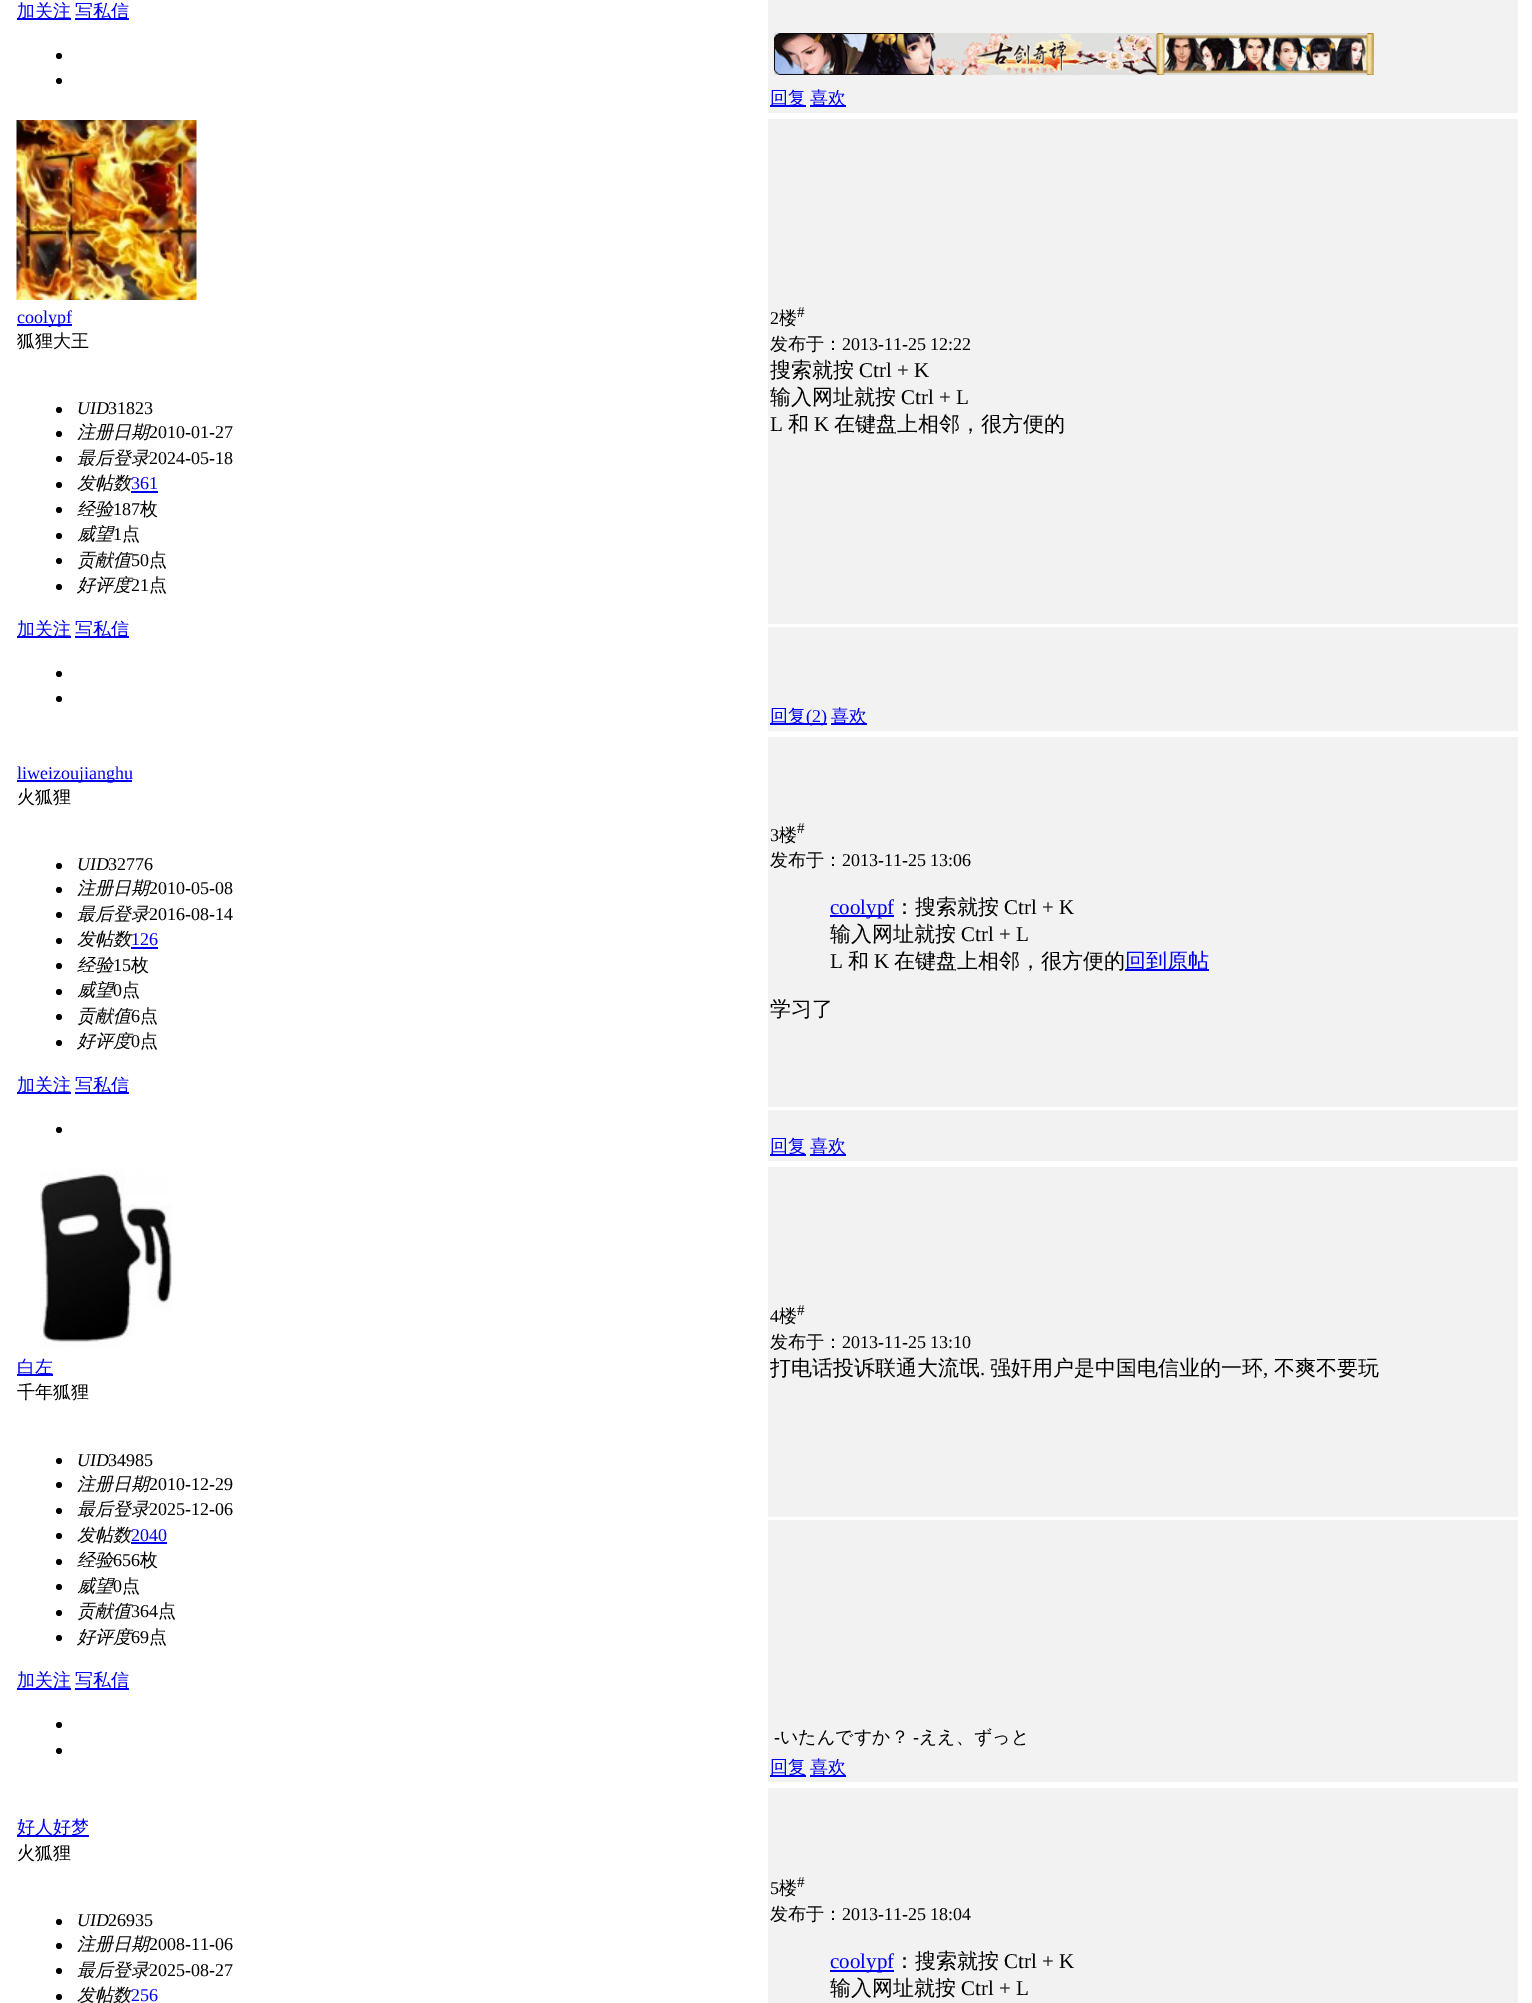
%!PS
<< /PageSize [1532 2003] >> setpagedevice
/rgb { 3 { 255 div 3 1 roll } repeat setrgbcolor } def
/font { [ exch dup neg 0 0 3 -1 roll 0 0 ] selectfont } def
/text { moveto show } def
/circle { newpath 0 360 arc closepath } def
/picture { 5 dict begin { /h /w /y /x /name } { exch def } forall
  gsave x y translate w h scale
  w h 8 [w 0 0 h 0 0] name (r) file false 3 colorimage grestore end } def
0 2003 translate 1 -1 scale
4 setmiterlimit
255 255 255 rgb
0 0 1532 2003 rectfill
0 0 238 rgb
17 18 54 2 rectfill
75 18 54 2 rectfill
0 0 0 rgb
59 56 3 circle fill
59 81 3 circle fill
242 242 242 rgb
768 0 750 113 rectfill
(img_01.rgb) 774 33 600 42 picture
0 0 238 rgb
770 105 36 2 rectfill
810 105 36 2 rectfill
(img_02.rgb) 16 120 181 180 picture
17 324 55 2 rectfill
0 0 0 rgb
59 410 3 circle fill
59 434 3 circle fill
59 459 3 circle fill
59 485 3 circle fill
59 510 3 circle fill
59 536 3 circle fill
59 561 3 circle fill
59 587 3 circle fill
0 0 238 rgb
17 636 54 2 rectfill
75 636 54 2 rectfill
0 0 0 rgb
59 674 3 circle fill
59 699 3 circle fill
242 242 242 rgb
768 119 750 505 rectfill
768 627 750 104 rectfill
0 0 238 rgb
770 723 57 2 rectfill
831 723 36 2 rectfill
17 780 115 2 rectfill
0 0 0 rgb
59 866 3 circle fill
59 890 3 circle fill
59 915 3 circle fill
59 941 3 circle fill
59 966 3 circle fill
59 992 3 circle fill
59 1017 3 circle fill
59 1043 3 circle fill
0 0 238 rgb
17 1092 54 2 rectfill
75 1092 54 2 rectfill
0 0 0 rgb
59 1130 3 circle fill
242 242 242 rgb
768 737 750 370 rectfill
0 0 238 rgb
830 915 64 2 rectfill
1125 969 84 2 rectfill
242 242 242 rgb
768 1110 750 51 rectfill
0 0 238 rgb
770 1154 36 2 rectfill
810 1154 36 2 rectfill
242 242 242 rgb
768 1167 750 350 rectfill
(img_03.rgb) 40 1169 132 178 picture
0 0 238 rgb
17 1374 36 2 rectfill
0 0 0 rgb
59 1461 3 circle fill
59 1485 3 circle fill
59 1511 3 circle fill
59 1536 3 circle fill
59 1562 3 circle fill
59 1587 3 circle fill
59 1613 3 circle fill
59 1638 3 circle fill
0 0 238 rgb
17 1688 54 2 rectfill
75 1688 54 2 rectfill
0 0 0 rgb
59 1725 3 circle fill
59 1751 3 circle fill
242 242 242 rgb
768 1520 750 262 rectfill
0 0 238 rgb
770 1775 36 2 rectfill
810 1775 36 2 rectfill
17 1835 72 2 rectfill
0 0 0 rgb
59 1922 3 circle fill
59 1946 3 circle fill
59 1971 3 circle fill
59 1997 3 circle fill
242 242 242 rgb
768 1788 750 215 rectfill
0 0 238 rgb
830 1970 64 2 rectfill
/WenQuanYiZenHei-Medium 18 font
(加关注) 17 17 text
(写私信) 75 17 text
(回复) 770 104 text
(喜欢) 810 104 text
/LiberationSerif-Regular 18 font
(coolypf) 17 323 text
/WenQuanYiZenHei-Medium 18 font
0 0 0 rgb
(狐狸大王) 17 347 text
/LiberationSerif-Italic 18 font
(UID) 77 414 text
/LiberationSerif-Regular 18 font
(31823) 108 414 text
/WenQuanYiZenHei-MediumItalic 18 font
(注册日期) 77 438 text
/LiberationSerif-Regular 18 font
(2010-01-27) 149 438 text
/WenQuanYiZenHei-MediumItalic 18 font
(最后登录) 77 464 text
/LiberationSerif-Regular 18 font
(2024-05-18) 149 464 text
/WenQuanYiZenHei-MediumItalic 18 font
(发帖数) 77 489 text
/LiberationSerif-Regular 18 font
0 0 238 rgb
(361) 131 489 text
131 491 27 2 rectfill
/WenQuanYiZenHei-MediumItalic 18 font
0 0 0 rgb
(经验) 77 515 text
/LiberationSerif-Regular 18 font
(187) 113 515 text
/WenQuanYiZenHei-Medium 18 font
(枚) 140 515 text
/WenQuanYiZenHei-MediumItalic 18 font
(威望) 77 540 text
/LiberationSerif-Regular 18 font
(1) 113 540 text
/WenQuanYiZenHei-Medium 18 font
(点) 122 540 text
/WenQuanYiZenHei-MediumItalic 18 font
(贡献值) 77 566 text
/LiberationSerif-Regular 18 font
(50) 131 566 text
/WenQuanYiZenHei-Medium 18 font
(点) 149 566 text
/WenQuanYiZenHei-MediumItalic 18 font
(好评度) 77 591 text
/LiberationSerif-Regular 18 font
(21) 131 591 text
/WenQuanYiZenHei-Medium 18 font
(点) 149 591 text
0 0 238 rgb
(加关注) 17 635 text
(写私信) 75 635 text
/LiberationSerif-Regular 18 font
0 0 0 rgb
(2) 770 324 text
/WenQuanYiZenHei-Medium 18 font
(楼) 779 324 text
/LiberationSerif-Regular 15 font
(#) 797 317 text
/WenQuanYiZenHei-Medium 18 font
(发布于：) 770 350 text
/LiberationSerif-Regular 18 font
(2013-11-25 12:22) 842 350 text
/WenQuanYiZenHei-Medium 21 font
(搜索就按) 770 377 text
/LiberationSerif-Regular 21 font
(Ctrl + K) 859 377 text
/WenQuanYiZenHei-Medium 21 font
(输入网址就按) 770 404 text
/LiberationSerif-Regular 21 font
(Ctrl + L) 901 404 text
(L) 770 431 text
/WenQuanYiZenHei-Medium 21 font
(和) 788 431 text
/LiberationSerif-Regular 21 font
(K) 814 431 text
/WenQuanYiZenHei-Medium 21 font
(在键盘上相邻，很方便的) 834 431 text
/WenQuanYiZenHei-Medium 18 font
0 0 238 rgb
(回复) 770 722 text
/LiberationSerif-Regular 18 font
(\(2\)) 806 722 text
/WenQuanYiZenHei-Medium 18 font
(喜欢) 831 722 text
/LiberationSerif-Regular 18 font
(liweizoujianghu) 17 779 text
/WenQuanYiZenHei-Medium 18 font
0 0 0 rgb
(火狐狸) 17 803 text
/LiberationSerif-Italic 18 font
(UID) 77 870 text
/LiberationSerif-Regular 18 font
(32776) 108 870 text
/WenQuanYiZenHei-MediumItalic 18 font
(注册日期) 77 894 text
/LiberationSerif-Regular 18 font
(2010-05-08) 149 894 text
/WenQuanYiZenHei-MediumItalic 18 font
(最后登录) 77 920 text
/LiberationSerif-Regular 18 font
(2016-08-14) 149 920 text
/WenQuanYiZenHei-MediumItalic 18 font
(发帖数) 77 945 text
/LiberationSerif-Regular 18 font
0 0 238 rgb
(126) 131 945 text
131 947 27 2 rectfill
/WenQuanYiZenHei-MediumItalic 18 font
0 0 0 rgb
(经验) 77 971 text
/LiberationSerif-Regular 18 font
(15) 113 971 text
/WenQuanYiZenHei-Medium 18 font
(枚) 131 971 text
/WenQuanYiZenHei-MediumItalic 18 font
(威望) 77 996 text
/LiberationSerif-Regular 18 font
(0) 113 996 text
/WenQuanYiZenHei-Medium 18 font
(点) 122 996 text
/WenQuanYiZenHei-MediumItalic 18 font
(贡献值) 77 1022 text
/LiberationSerif-Regular 18 font
(6) 131 1022 text
/WenQuanYiZenHei-Medium 18 font
(点) 140 1022 text
/WenQuanYiZenHei-MediumItalic 18 font
(好评度) 77 1047 text
/LiberationSerif-Regular 18 font
(0) 131 1047 text
/WenQuanYiZenHei-Medium 18 font
(点) 140 1047 text
0 0 238 rgb
(加关注) 17 1091 text
(写私信) 75 1091 text
/LiberationSerif-Regular 18 font
0 0 0 rgb
(3) 770 841 text
/WenQuanYiZenHei-Medium 18 font
(楼) 779 841 text
/LiberationSerif-Regular 15 font
(#) 797 833 text
/WenQuanYiZenHei-Medium 18 font
(发布于：) 770 866 text
/LiberationSerif-Regular 18 font
(2013-11-25 13:06) 842 866 text
/LiberationSerif-Regular 21 font
0 0 238 rgb
(coolypf) 830 914 text
/WenQuanYiZenHei-Medium 21 font
0 0 0 rgb
(：搜索就按) 894 914 text
/LiberationSerif-Regular 21 font
(Ctrl + K) 1004 914 text
/WenQuanYiZenHei-Medium 21 font
(输入网址就按) 830 941 text
/LiberationSerif-Regular 21 font
(Ctrl + L) 961 941 text
(L) 830 968 text
/WenQuanYiZenHei-Medium 21 font
(和) 848 968 text
/LiberationSerif-Regular 21 font
(K) 874 968 text
/WenQuanYiZenHei-Medium 21 font
(在键盘上相邻，很方便的) 894 968 text
0 0 238 rgb
(回到原帖) 1125 968 text
0 0 0 rgb
(学习了) 770 1016 text
/WenQuanYiZenHei-Medium 18 font
0 0 238 rgb
(回复) 770 1152 text
(喜欢) 810 1152 text
/LiberationSerif-Regular 18 font
0 0 0 rgb
(4) 770 1322 text
/WenQuanYiZenHei-Medium 18 font
(楼) 779 1322 text
/LiberationSerif-Regular 15 font
(#) 797 1315 text
/WenQuanYiZenHei-Medium 18 font
(发布于：) 770 1348 text
/LiberationSerif-Regular 18 font
(2013-11-25 13:10) 842 1348 text
/WenQuanYiZenHei-Medium 21 font
(打电话投诉联通大流氓) 770 1375 text
/LiberationSerif-Regular 21 font
(.) 980 1375 text
/WenQuanYiZenHei-Medium 21 font
(强奸用户是中国电信业的一环) 990 1375 text
/LiberationSerif-Regular 21 font
(,) 1263 1375 text
/WenQuanYiZenHei-Medium 21 font
(不爽不要玩) 1274 1375 text
/WenQuanYiZenHei-Medium 18 font
0 0 238 rgb
(白左) 17 1373 text
0 0 0 rgb
(千年狐狸) 17 1398 text
/LiberationSerif-Italic 18 font
(UID) 77 1466 text
/LiberationSerif-Regular 18 font
(34985) 108 1466 text
/WenQuanYiZenHei-MediumItalic 18 font
(注册日期) 77 1490 text
/LiberationSerif-Regular 18 font
(2010-12-29) 149 1490 text
/WenQuanYiZenHei-MediumItalic 18 font
(最后登录) 77 1515 text
/LiberationSerif-Regular 18 font
(2025-12-06) 149 1515 text
/WenQuanYiZenHei-MediumItalic 18 font
(发帖数) 77 1541 text
/LiberationSerif-Regular 18 font
0 0 238 rgb
(2040) 131 1541 text
131 1542 36 2 rectfill
/WenQuanYiZenHei-MediumItalic 18 font
0 0 0 rgb
(经验) 77 1566 text
/LiberationSerif-Regular 18 font
(656) 113 1566 text
/WenQuanYiZenHei-Medium 18 font
(枚) 140 1566 text
/WenQuanYiZenHei-MediumItalic 18 font
(威望) 77 1592 text
/LiberationSerif-Regular 18 font
(0) 113 1592 text
/WenQuanYiZenHei-Medium 18 font
(点) 122 1592 text
/WenQuanYiZenHei-MediumItalic 18 font
(贡献值) 77 1617 text
/LiberationSerif-Regular 18 font
(364) 131 1617 text
/WenQuanYiZenHei-Medium 18 font
(点) 158 1617 text
/WenQuanYiZenHei-MediumItalic 18 font
(好评度) 77 1643 text
/LiberationSerif-Regular 18 font
(69) 131 1643 text
/WenQuanYiZenHei-Medium 18 font
(点) 149 1643 text
0 0 238 rgb
(加关注) 17 1686 text
(写私信) 75 1686 text
/LiberationSerif-Regular 18 font
0 0 0 rgb
(-) 774 1743 text
/WenQuanYiZenHei-Medium 18 font
(いたんですか？) 780 1743 text
/LiberationSerif-Regular 18 font
(-) 913 1743 text
/WenQuanYiZenHei-Medium 18 font
(ええ、ずっと) 919 1743 text
0 0 238 rgb
(回复) 770 1773 text
(喜欢) 810 1773 text
(好人好梦) 17 1833 text
0 0 0 rgb
(火狐狸) 17 1859 text
/LiberationSerif-Italic 18 font
(UID) 77 1926 text
/LiberationSerif-Regular 18 font
(26935) 108 1926 text
/WenQuanYiZenHei-MediumItalic 18 font
(注册日期) 77 1950 text
/LiberationSerif-Regular 18 font
(2008-11-06) 149 1950 text
/WenQuanYiZenHei-MediumItalic 18 font
(最后登录) 77 1976 text
/LiberationSerif-Regular 18 font
(2025-08-27) 149 1976 text
/WenQuanYiZenHei-MediumItalic 18 font
(发帖数) 77 2001 text
/LiberationSerif-Regular 18 font
0 0 238 rgb
(256) 131 2001 text
0 0 0 rgb
(5) 770 1894 text
/WenQuanYiZenHei-Medium 18 font
(楼) 779 1894 text
/LiberationSerif-Regular 15 font
(#) 797 1887 text
/WenQuanYiZenHei-Medium 18 font
(发布于：) 770 1920 text
/LiberationSerif-Regular 18 font
(2013-11-25 18:04) 842 1920 text
/LiberationSerif-Regular 21 font
0 0 238 rgb
(coolypf) 830 1968 text
/WenQuanYiZenHei-Medium 21 font
0 0 0 rgb
(：搜索就按) 894 1968 text
/LiberationSerif-Regular 21 font
(Ctrl + K) 1004 1968 text
/WenQuanYiZenHei-Medium 21 font
(输入网址就按) 830 1995 text
/LiberationSerif-Regular 21 font
(Ctrl + L) 961 1995 text
showpage
